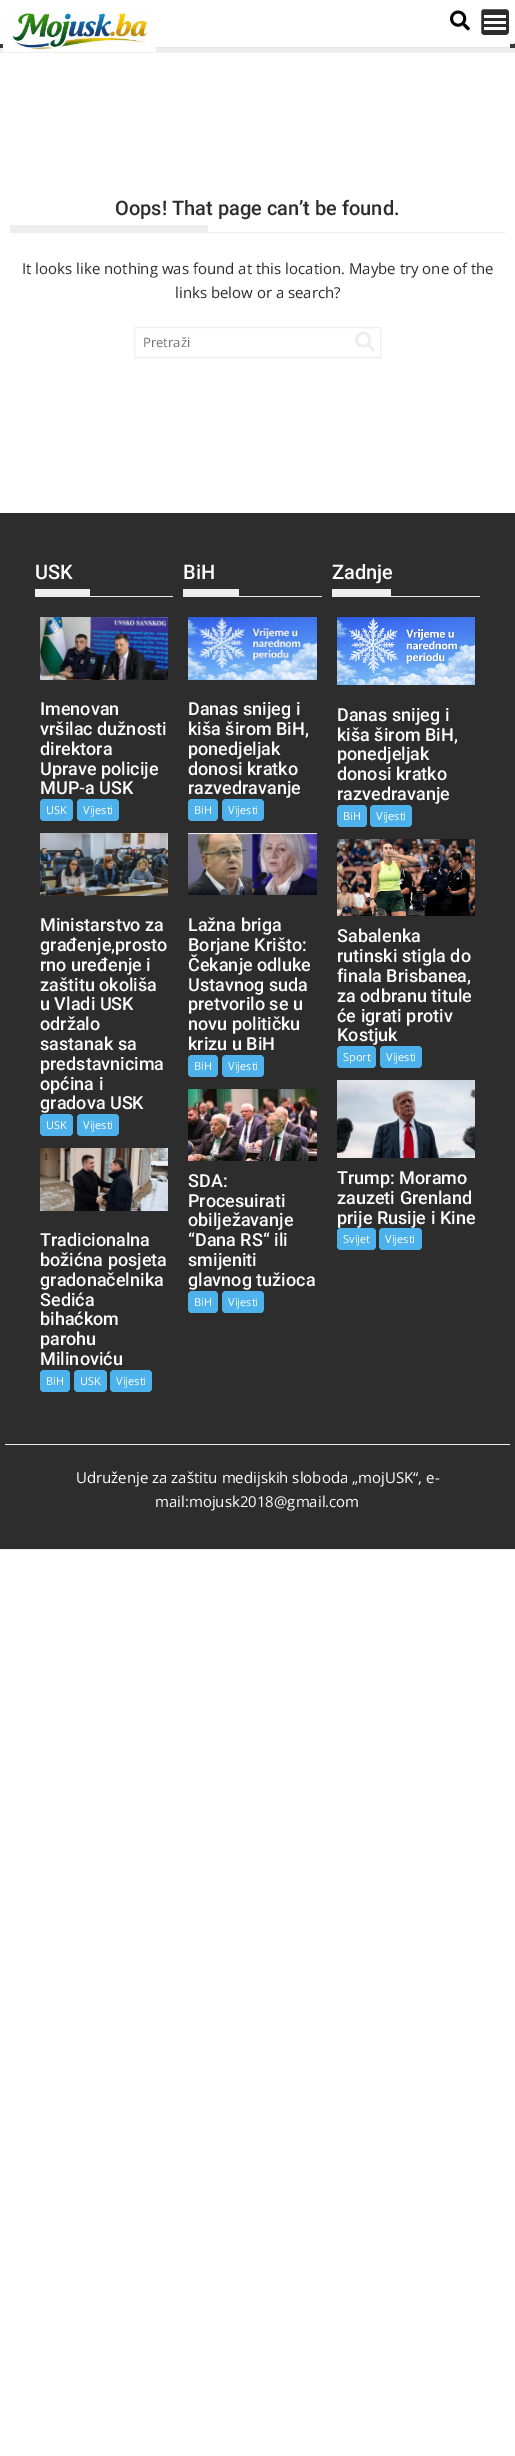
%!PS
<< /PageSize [515 2456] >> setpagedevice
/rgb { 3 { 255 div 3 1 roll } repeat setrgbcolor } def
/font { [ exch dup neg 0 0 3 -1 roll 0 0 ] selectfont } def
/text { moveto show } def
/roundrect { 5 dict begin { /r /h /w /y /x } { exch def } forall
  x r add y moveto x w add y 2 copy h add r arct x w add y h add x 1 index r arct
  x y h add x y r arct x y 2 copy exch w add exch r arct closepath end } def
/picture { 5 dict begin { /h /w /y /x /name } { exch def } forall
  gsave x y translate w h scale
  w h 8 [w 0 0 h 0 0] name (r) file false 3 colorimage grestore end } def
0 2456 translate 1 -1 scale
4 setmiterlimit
255 255 255 rgb
0 0 515 2456 rectfill
gsave
0 0 515 48 rectclip
57 57 57 rgb
-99 -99 moveto 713 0 rlineto 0 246 rlineto -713 0 rlineto closepath -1 -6 moveto 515 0 rlineto 1 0 1 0 1 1 rcurveto 0 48 rlineto 0 1 0 1 -1 1 rcurveto -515 0 rlineto -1 0 -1 0 -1 -1 rcurveto 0 -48 rlineto 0 -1 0 -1 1 -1 rcurveto closepath eofill
grestore
238 238 238 rgb
0 48 515 5 rectfill
45 45 45 rgb
480.5 8.5 29 27 3.5 roundrect gsave fill grestore
255 255 255 rgb
stroke
484 27 22 3 rectfill
484 21 22 3 rectfill
484 15 22 3 rectfill
5 44 505 3 rectfill
229 229 229 rgb
156 47 354 1 rectfill
(img_01.rgb) 3 12 153 40 picture
(img_02.rgb) 450 10 20 21 picture
238 238 238 rgb
10 232 495 1 rectfill
10 225 198 7 rectfill
134.5 327.5 246 30 rectstroke
(img_03.rgb) 355 331 20 21 picture
45 45 45 rgb
0 513 515 1036 rectfill
238 238 238 rgb
0 1549 515 1 rectfill
35 596 138 1 rectfill
35 589 55 7 rectfill
(img_04.rgb) 40 617 128 63 picture
77 178 236 rgb
40 799 33 22 4 roundrect fill
77 799 42 22 4 roundrect fill
(img_05.rgb) 40 833 128 63 picture
40 1114 33 22 4 roundrect fill
77 1114 42 22 4 roundrect fill
(img_06.rgb) 40 1148 128 63 picture
40 1370 30 22 4 roundrect fill
74 1370 33 22 4 roundrect fill
110 1370 42 22 4 roundrect fill
238 238 238 rgb
183 596 139 1 rectfill
183 589 56 7 rectfill
(img_07.rgb) 188 617 129 63 picture
77 178 236 rgb
188 799 30 22 4 roundrect fill
222 799 42 22 4 roundrect fill
(img_08.rgb) 188 833 129 62 picture
188 1055 30 22 4 roundrect fill
222 1055 42 22 4 roundrect fill
(img_09.rgb) 188 1089 129 72 picture
188 1291 30 22 4 roundrect fill
222 1291 42 22 4 roundrect fill
238 238 238 rgb
332 596 148 1 rectfill
332 589 59 7 rectfill
(img_10.rgb) 337 617 138 68 picture
77 178 236 rgb
337 805 30 22 4 roundrect fill
370 805 42 22 4 roundrect fill
(img_11.rgb) 337 839 138 77 picture
337 1046 39 22 4 roundrect fill
380 1046 42 22 4 roundrect fill
(img_12.rgb) 337 1080 138 78 picture
337 1228 39 22 4 roundrect fill
379 1228 43 22 4 roundrect fill
238 238 238 rgb
5 1444 505 1 rectfill
/Roboto-Medium 20 font
45 45 45 rgb
(Oops! That page can’t be found.) 115 215 text
/OpenSans-Regular 15 font
(It looks like nothing was found at this location. Maybe try one of the) 22 274 text
(links below or a search?) 175 298 text
/OpenSans-Regular 13 font
117 117 117 rgb
(Pretraži) 143 347 text
/Roboto-Medium 20 font
255 255 255 rgb
(USK) 35 579 text
/Roboto-Medium 18 font
(Imenovan) 40 715 text
(vršilac dužnosti) 40 735 text
(direktora) 40 755 text
(Uprave policije) 40 775 text
(MUP-a USK) 40 794 text
/OpenSans-Regular 11 font
(USK) 46 814 text
(Vijesti) 83 814 text
/Roboto-Medium 18 font
(Ministarstvo za) 40 931 text
(građenje,prosto) 40 951 text
(rno uređenje i) 40 971 text
(zaštitu okoliša) 40 991 text
(u Vladi USK) 40 1010 text
(održalo) 40 1030 text
(sastanak sa) 40 1050 text
(predstavnicima) 40 1070 text
(općina i) 40 1090 text
(gradova USK) 40 1109 text
/OpenSans-Regular 11 font
(USK) 46 1129 text
(Vijesti) 83 1129 text
/Roboto-Medium 18 font
(Tradicionalna) 40 1246 text
(božićna posjeta) 40 1266 text
(gradonačelnika) 40 1286 text
(Sedića) 40 1306 text
(bihaćkom) 40 1325 text
(parohu) 40 1345 text
(Milinoviću) 40 1365 text
/OpenSans-Regular 11 font
(BiH) 46 1385 text
(USK) 80 1385 text
(Vijesti) 116 1385 text
/Roboto-Medium 20 font
(BiH) 183 579 text
/Roboto-Medium 18 font
(Danas snijeg i) 188 715 text
(kiša širom BiH,) 188 735 text
(ponedjeljak) 188 755 text
(donosi kratko) 188 775 text
(razvedravanje) 188 794 text
/OpenSans-Regular 11 font
(BiH) 194 814 text
(Vijesti) 228 814 text
/Roboto-Medium 18 font
(Lažna briga) 188 931 text
(Borjane Krišto:) 188 951 text
(Čekanje odluke) 188 971 text
(Ustavnog suda) 188 991 text
(pretvorilo se u) 188 1010 text
(novu političku) 188 1030 text
(krizu u BiH) 188 1050 text
/OpenSans-Regular 11 font
(BiH) 194 1070 text
(Vijesti) 228 1070 text
/Roboto-Medium 18 font
(SDA:) 188 1187 text
(Procesuirati) 188 1207 text
(obilježavanje) 188 1226 text
(“Dana RS“ ili) 188 1246 text
(smijeniti) 188 1266 text
(glavnog tužioca) 188 1286 text
/OpenSans-Regular 11 font
(BiH) 194 1306 text
(Vijesti) 228 1306 text
/Roboto-Medium 20 font
(Zadnje) 332 579 text
/Roboto-Medium 18 font
(Danas snijeg i) 337 721 text
(kiša širom BiH,) 337 741 text
(ponedjeljak) 337 760 text
(donosi kratko) 337 780 text
(razvedravanje) 337 800 text
/OpenSans-Regular 11 font
(BiH) 343 820 text
(Vijesti) 376 820 text
/Roboto-Medium 18 font
(Sabalenka) 337 942 text
(rutinski stigla do) 337 962 text
(finala Brisbanea,) 337 982 text
(za odbranu titule) 337 1002 text
(će igrati protiv) 337 1022 text
(Kostjuk) 337 1041 text
/OpenSans-Regular 11 font
(Sport) 343 1061 text
(Vijesti) 386 1061 text
/Roboto-Medium 18 font
(Trump: Moramo) 337 1184 text
(zauzeti Grenland) 337 1204 text
(prije Rusije i Kine) 337 1224 text
/OpenSans-Regular 11 font
(Svijet) 343 1243 text
(Vijesti) 385 1243 text
/OpenSans-Regular 15 font
(Udruženje za zaštitu medijskih sloboda „mojUSK“, e-) 76 1483 text
(mail:mojusk2018@gmail.com) 155 1507 text
showpage
